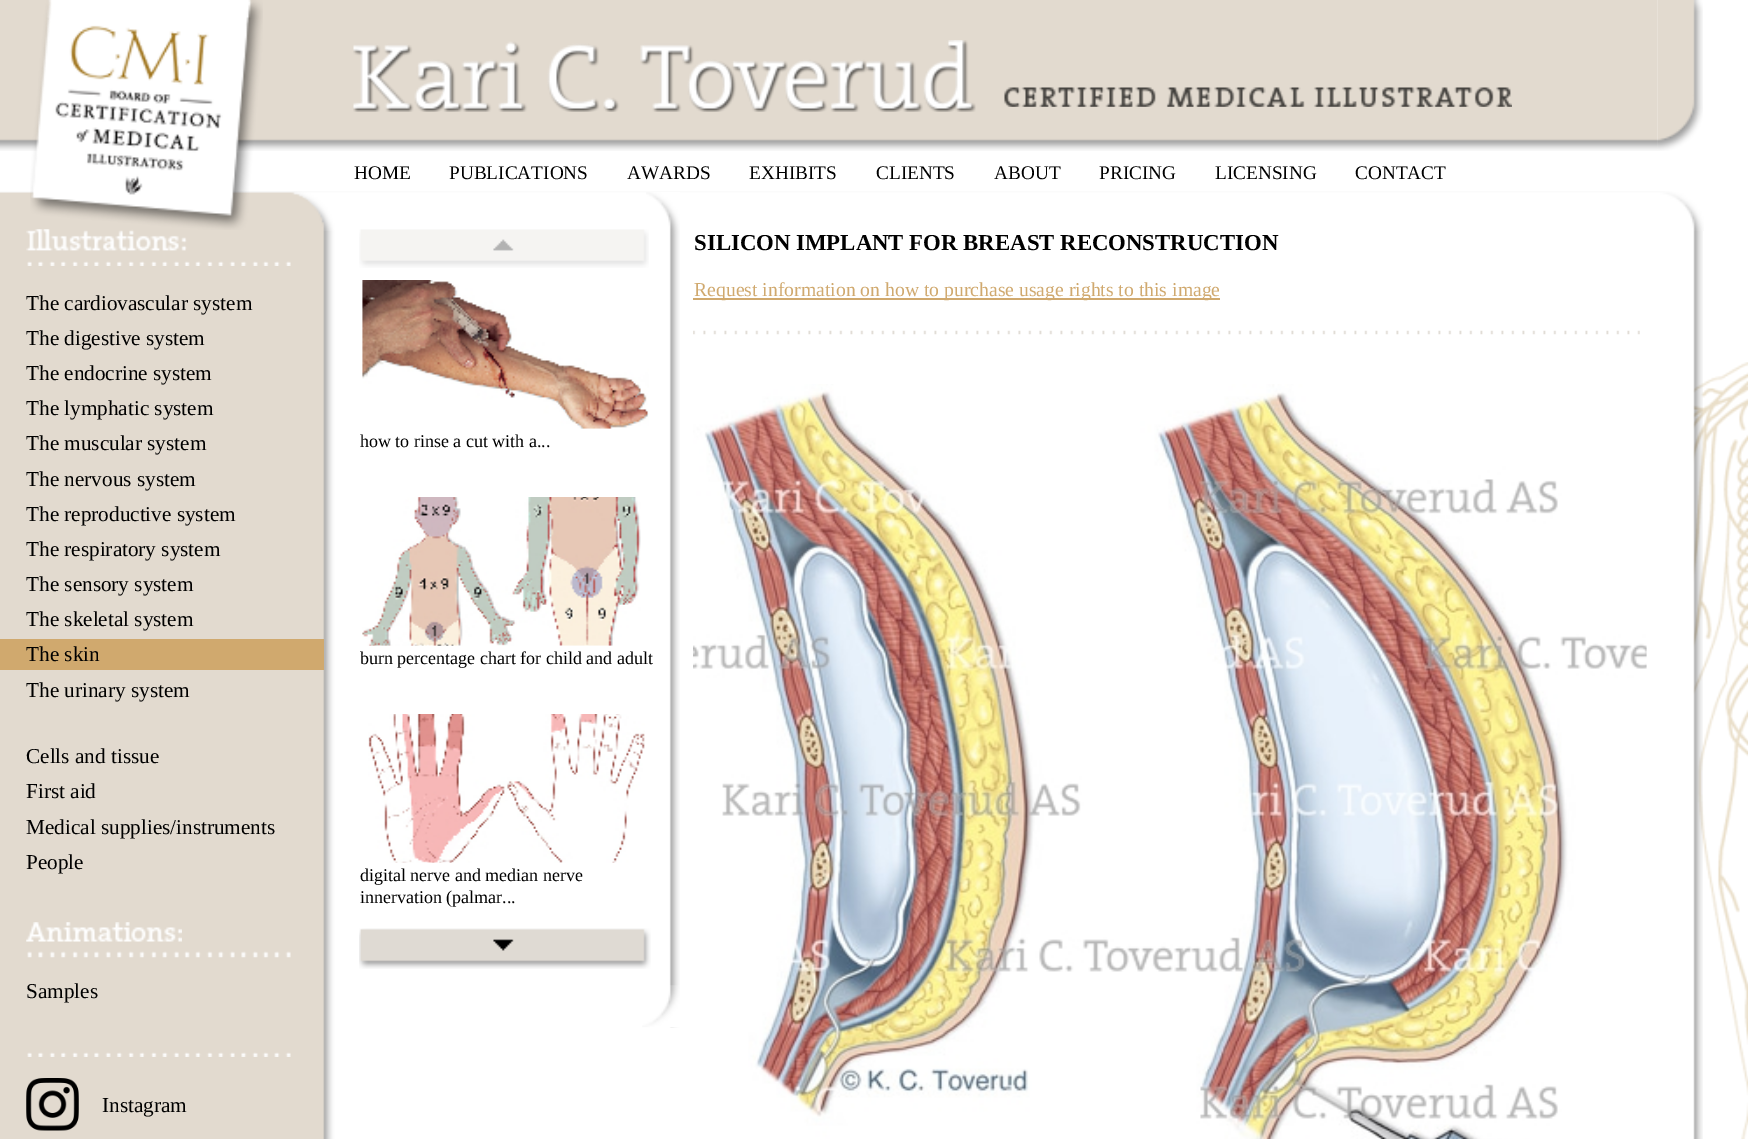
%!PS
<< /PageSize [1748 1139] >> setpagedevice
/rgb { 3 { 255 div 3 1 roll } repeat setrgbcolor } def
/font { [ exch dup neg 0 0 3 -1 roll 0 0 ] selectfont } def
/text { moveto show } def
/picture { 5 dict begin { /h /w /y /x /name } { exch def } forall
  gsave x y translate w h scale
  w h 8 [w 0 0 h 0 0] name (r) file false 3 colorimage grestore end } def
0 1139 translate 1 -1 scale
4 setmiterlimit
255 255 255 rgb
0 0 1748 1139 rectfill
(img_01.rgb) 1693 362 55 777 picture
(img_02.rgb) 0 231 1703 908 picture
(img_04.rgb) 1657 0 46 151 picture
(img_05.rgb) 0 0 1658 151 picture
(img_08.rgb) 0 191 1704 40 picture
(img_09.rgb) 26 229 161 22 picture
(img_03.rgb) 30 0 233 230 picture
(img_06.rgb) 353 40 623 72 picture
(img_07.rgb) 1004 87 508 20 picture
(img_10.rgb) 27 261 264 5 picture
208 169 110 rgb
0 639 324 31 rectfill
(img_11.rgb) 26 922 156 20 picture
(img_12.rgb) 27 951 264 7 picture
(img_10.rgb) 27 1052 264 5 picture
(img_13.rgb) 26 1078 53 53 picture
693 298 527 2 rectfill
(img_14.rgb) 693 330 947 5 picture
(img_15.rgb) 693 384 954 755 picture
(img_16.rgb) 646 192 34 836 picture
(img_17.rgb) 642 985 38 43 picture
(img_18.rgb) 359 229 290 39 picture
(img_19.rgb) 362 280 287 149 picture
(img_20.rgb) 362 497 279 149 picture
(img_21.rgb) 368 714 277 149 picture
(img_22.rgb) 359 928 292 41 picture
/LiberationSerif-Regular 19.25 font
0 0 0 rgb
(HOME) 354 179 text
(PUBLICATIONS) 449 179 text
(AWARDS) 627 179 text
(EXHIBITS) 749 179 text
(CLIENTS) 876 179 text
(ABOUT) 994 179 text
(PRICING) 1099 179 text
(LICENSING) 1215 179 text
(CONTACT) 1355 179 text
/LiberationSerif-Regular 21.2 font
(The cardiovascular system) 26 310 text
(The digestive system) 26 345 text
(The endocrine system) 26 380 text
(The lymphatic system) 26 415 text
(The muscular system) 26 450 text
(The nervous system) 26 486 text
(The reproductive system) 26 521 text
(The respiratory system) 26 556 text
(The sensory system) 26 591 text
(The skeletal system) 26 626 text
(The skin) 26 661 text
(The urinary system) 26 697 text
(Cells and tissue) 26 763 text
(First aid) 26 798 text
(Medical supplies/instruments) 26 834 text
(People) 26 869 text
(Samples) 26 998 text
(Instagram) 102 1112 text
/LiberationSerif-Bold 22.8 font
(SILICON IMPLANT FOR BREAST RECONSTRUCTION) 694 250 text
/LiberationSerif-Regular 19.7 font
208 169 110 rgb
(Request information on how to purchase usage rights to this image) 694 296 text
/LiberationSerif-Regular 18 font
0 0 0 rgb
(how to rinse a cut with a...) 360 447 text
(burn percentage chart for child and adult) 360 664 text
(digital nerve and median nerve) 360 881 text
(innervation \(palmar...) 360 903 text
showpage
